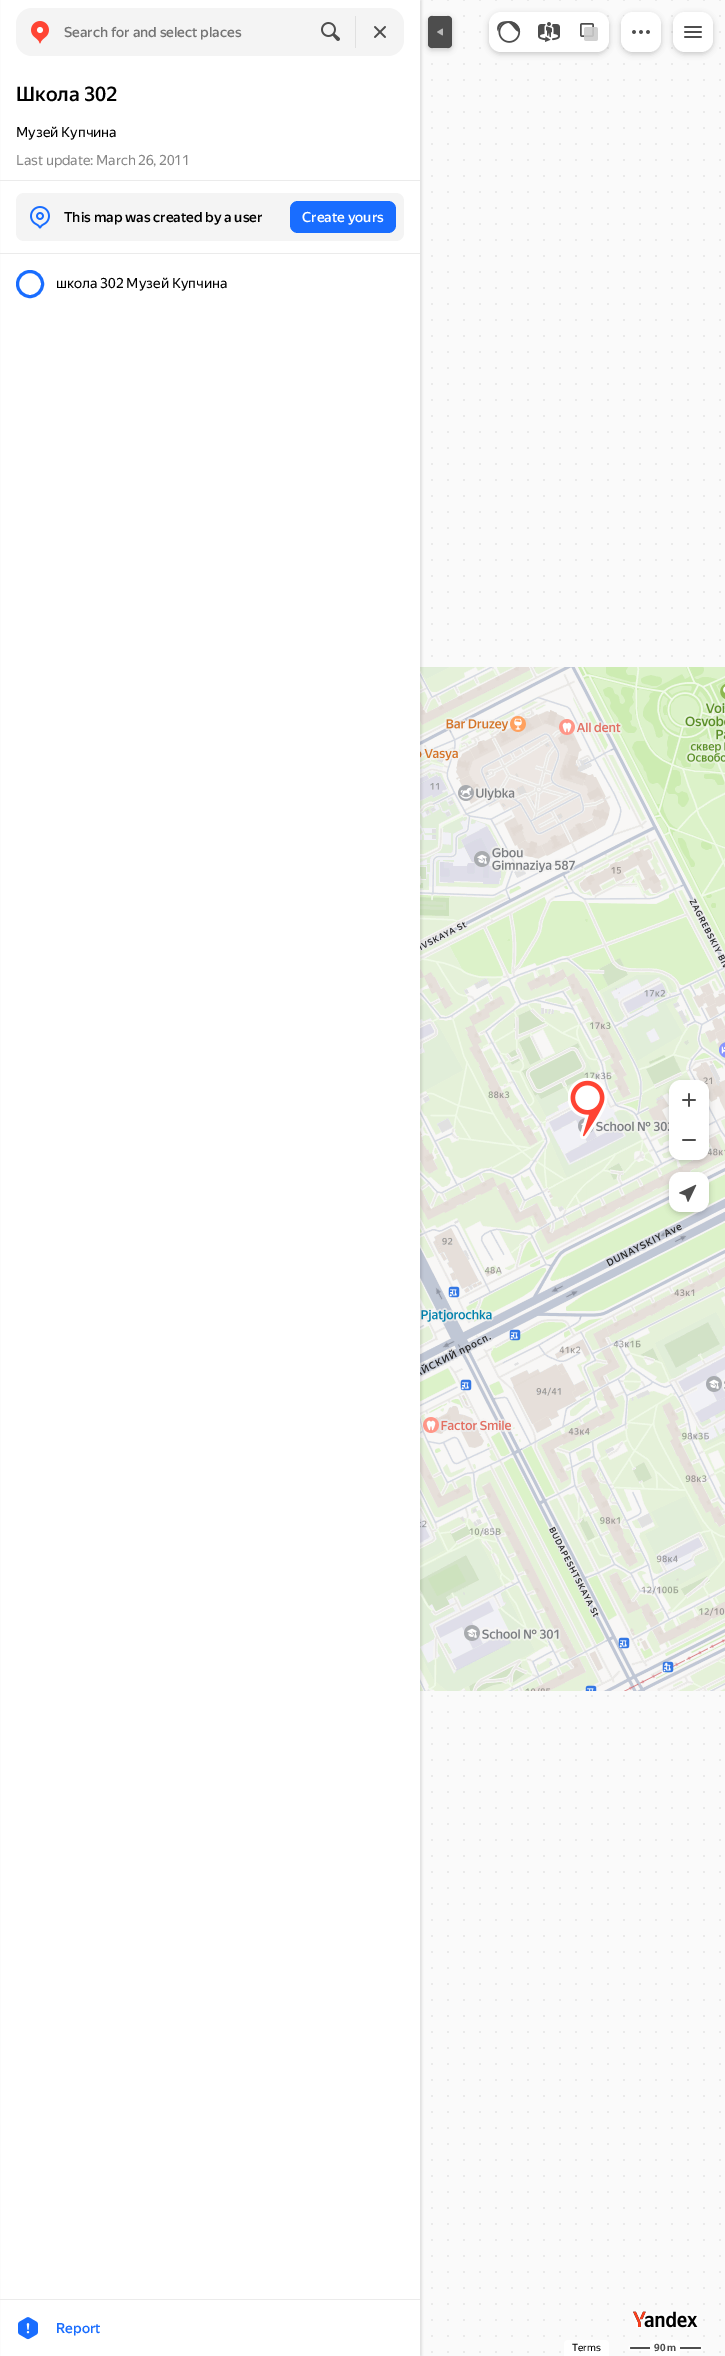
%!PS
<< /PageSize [725 2356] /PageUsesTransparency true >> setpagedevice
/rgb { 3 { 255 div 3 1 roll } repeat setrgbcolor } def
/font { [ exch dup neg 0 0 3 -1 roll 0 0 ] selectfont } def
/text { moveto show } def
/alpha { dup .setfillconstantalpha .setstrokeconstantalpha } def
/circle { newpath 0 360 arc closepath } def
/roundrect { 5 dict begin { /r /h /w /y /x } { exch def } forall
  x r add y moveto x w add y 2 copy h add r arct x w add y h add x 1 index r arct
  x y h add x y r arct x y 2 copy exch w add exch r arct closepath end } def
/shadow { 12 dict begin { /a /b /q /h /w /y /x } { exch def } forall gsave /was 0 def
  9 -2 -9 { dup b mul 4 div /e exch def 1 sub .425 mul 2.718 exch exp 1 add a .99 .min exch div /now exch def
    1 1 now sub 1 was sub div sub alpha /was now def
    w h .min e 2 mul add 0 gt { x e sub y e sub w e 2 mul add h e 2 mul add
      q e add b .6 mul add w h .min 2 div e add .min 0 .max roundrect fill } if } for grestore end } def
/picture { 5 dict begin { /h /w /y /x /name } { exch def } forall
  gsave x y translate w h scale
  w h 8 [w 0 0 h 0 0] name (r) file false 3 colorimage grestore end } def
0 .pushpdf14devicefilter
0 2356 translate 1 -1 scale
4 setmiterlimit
255 255 255 rgb
0 0 725 2356 rectfill
(img_01.rgb) 420 0 305 2356 picture
(img_17.rgb) 420 667 166 256 picture
(img_19.rgb) 420 923 166 256 picture
(img_21.rgb) 420 1179 166 256 picture
(img_23.rgb) 420 1435 166 256 picture
0 0 0 rgb
2 0 420 2356 0 1 0.1 shadow
428 18 24 32 4 3 0.2 shadow
255 255 255 rgb
1 0 419 2356 rectfill
244 244 244 rgb
16 8 388 48 16 roundrect fill
(img_02.rgb) 31 21 18 23 picture
(img_03.rgb) 321 22 19 19 picture
224 224 224 rgb
355 16 1 32 rectfill
(img_04.rgb) 374 26 12 12 picture
0 0 0 rgb
489 14 120 40 12 3 0.2 shadow
255 255 255 rgb
501 12 moveto 28 0 rlineto 0 40 rlineto -28 0 rlineto -6.5 0 -12 -5.5 -12 -12 rcurveto 0 -16 rlineto 0 -6.5 5.5 -12 12 -12 rcurveto closepath fill
(img_05.rgb) 497 21 24 22 picture
529 12 40 40 rectfill
(img_06.rgb) 538 22 22 20 picture
569 12 moveto 28 0 rlineto 6.5 0 12 5.5 12 12 rcurveto 0 16 rlineto 0 6.5 -5.5 12 -12 12 rcurveto -28 0 rlineto closepath fill
(img_07.rgb) 580 23 18 18 picture
0 0 0 rgb
621 14 40 40 12 3 0.2 shadow
255 255 255 rgb
621 12 40 40 12 roundrect fill
(img_08.rgb) 632 30 18 4 picture
0 0 0 rgb
673 14 40 40 12 3 0.2 shadow
255 255 255 rgb
673 12 40 40 12 roundrect fill
(img_09.rgb) 684 26 18 12 picture
(img_20.rgb) 586 923 139 256 picture
0 0 0 rgb
669 1082 40 80 12 3 0.2 shadow
255 255 255 rgb
681 1080 moveto 16 0 rlineto 6.5 0 12 5.5 12 12 rcurveto 0 28 rlineto -40 0 rlineto 0 -28 rlineto 0 -6.5 5.5 -12 12 -12 rcurveto closepath fill
(img_10.rgb) 682 1093 14 14 picture
669 1120 moveto 40 0 rlineto 0 28 rlineto 0 6.5 -5.5 12 -12 12 rcurveto -16 0 rlineto -6.5 0 -12 -5.5 -12 -12 rcurveto closepath fill
(img_11.rgb) 682 1139 14 2 picture
(img_22.rgb) 586 1179 139 256 picture
0 0 0 rgb
669 1174 40 40 12 3 0.2 shadow
255 255 255 rgb
669 1172 40 40 12 roundrect fill
(img_12.rgb) 679 1184 18 18 picture
77 77 77 rgb
428 16 24 32 4 roundrect fill
(img_13.rgb) 437 28 6 8 picture
235 235 235 rgb
0 180 420 1 rectfill
0 253 420 1 rectfill
244 244 244 rgb
16 193 388 48 8 roundrect fill
(img_14.rgb) 30 206 20 23 picture
25 109 255 rgb
290 201 106 32 8 roundrect fill
3 setlinewidth
30 284 12.5 circle stroke
235 235 235 rgb
0 2299 420 1 rectfill
(img_15.rgb) 18 2317 20 23 picture
(img_16.rgb) 633 2311 65 17 picture
255 255 255 rgb
568 2340 moveto 37 0 rlineto 2 0 4 2 4 4 rcurveto 0 12 rlineto -45 0 rlineto 0 -12 rlineto 0 -2 2 -4 4 -4 rcurveto closepath fill
253 253 253 rgb
628 2345 75 6 3 roundrect fill
77 77 77 rgb
630 2347 71 2 1 roundrect fill
255 255 255 rgb
654 2340 moveto 22 0 rlineto 2 0 4 2 4 4 rcurveto 0 12 rlineto -30 0 rlineto 0 -12 rlineto 0 -2 2 -4 4 -4 rcurveto closepath fill
(img_18.rgb) 586 667 139 256 picture
(img_24.rgb) 586 1435 139 256 picture
(img_25.rgb) 568 1078 40 61 picture
/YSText-Medium 14 font
117 117 117 rgb
(Search for and select places) 64 37 text
/YSText-Medium 20 font
0 0 0 rgb
(Школа 302) 16 101 text
/YSText-Regular 14 font
(Музей Купчина) 16 137 text
135 135 135 rgb
16 165 moveto -0.5 0 32 (Last update: March 26, 2011) widthshow
/YSText-Medium 14 font
0 0 0 rgb
(This map was created by a user) 64 222 text
255 255 255 rgb
(Create yours) 302 222 text
/YSText-Regular 14 font
0 0 0 rgb
(школа 302 Музей Купчина) 56 288 text
/YSText-Medium 14 font
25 109 255 rgb
(Report) 56 2333 text
/YSText-Regular 10 font
0 0 0 rgb
(Terms) 572 2351 text
/YSText-Bold 10 font
77 77 77 rgb
(90 m) 654 2351 text
.poppdf14devicefilter showpage
